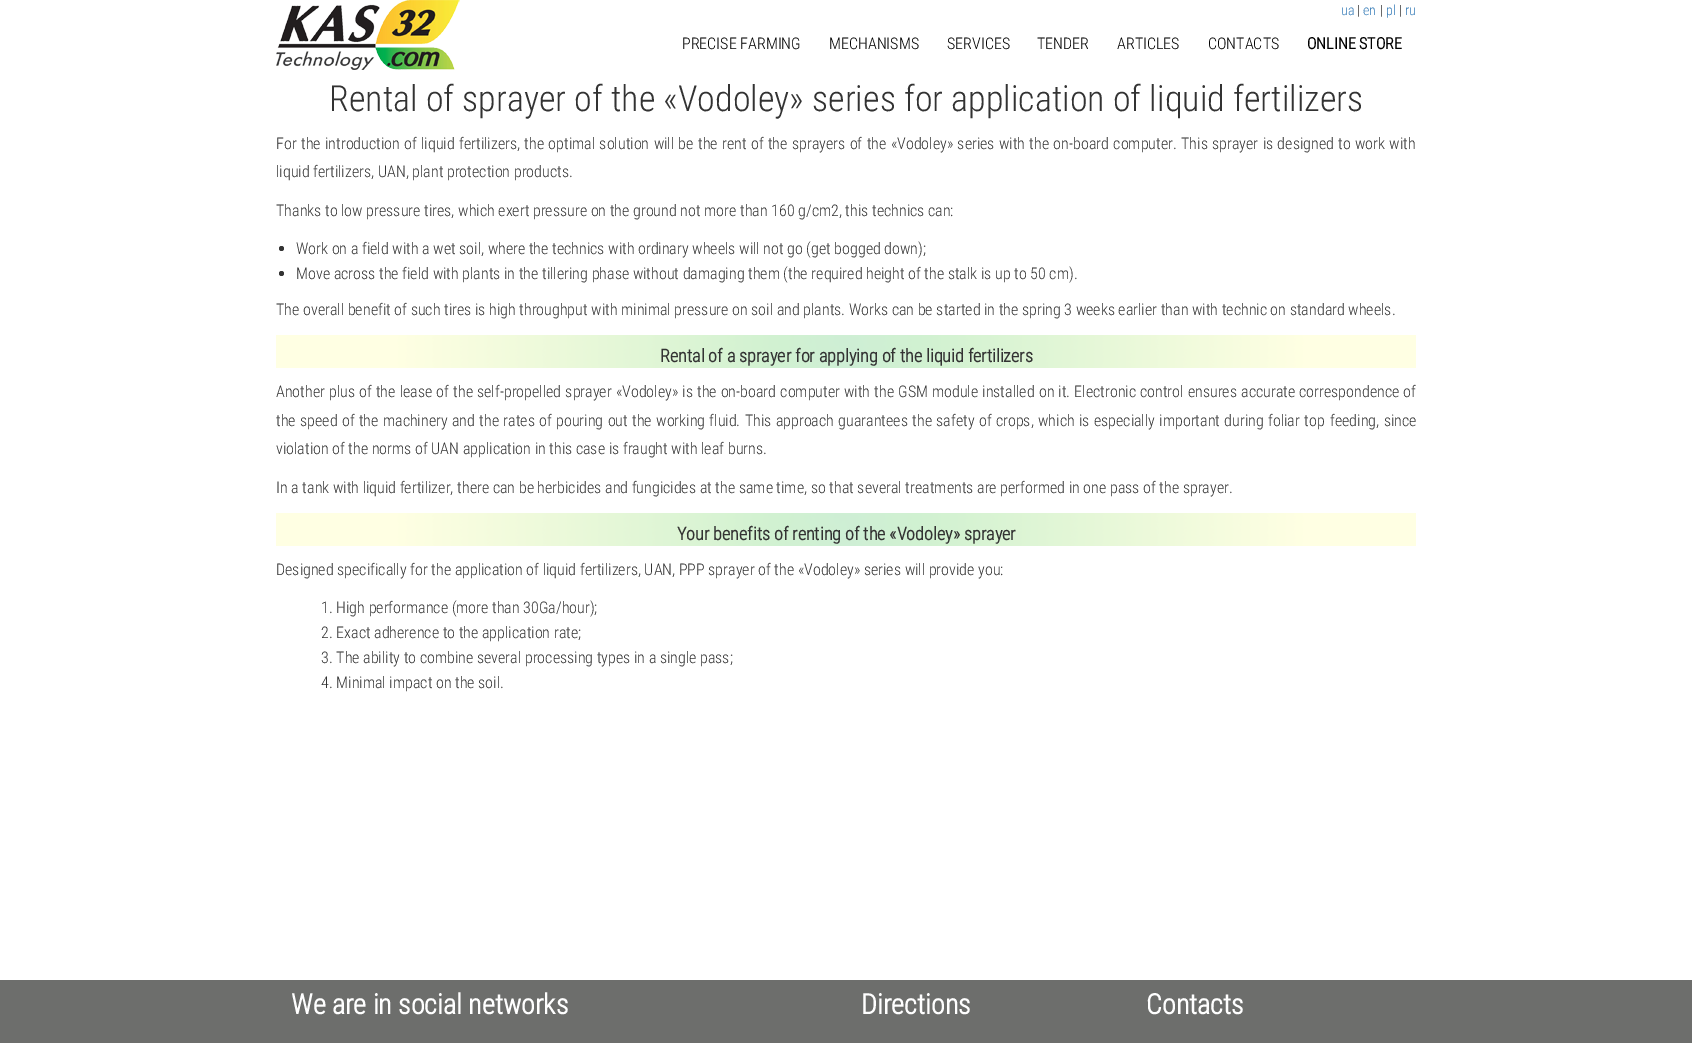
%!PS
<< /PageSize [1692 1043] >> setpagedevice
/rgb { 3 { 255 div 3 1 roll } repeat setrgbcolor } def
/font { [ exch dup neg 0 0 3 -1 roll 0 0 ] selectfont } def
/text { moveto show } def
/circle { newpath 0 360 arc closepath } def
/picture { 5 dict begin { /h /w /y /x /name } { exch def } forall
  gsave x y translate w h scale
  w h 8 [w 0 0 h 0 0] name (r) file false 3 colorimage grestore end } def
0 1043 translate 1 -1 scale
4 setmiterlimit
255 255 255 rgb
0 0 1692 1043 rectfill
(img_01.rgb) 276 0 184 70 picture
51 51 51 rgb
281.5 248.5 2.5 circle fill
281.5 273.5 2.5 circle fill
(img_02.rgb) 276 335 1140 33 picture
(img_02.rgb) 276 513 1140 33 picture
109 110 108 rgb
0 980 1692 63 rectfill
/RobotoCondensed-Light 14 font
51 122 183 rgb
(ua) 1341 15 text
51 51 51 rgb
(|) 1357 15 text
51 122 183 rgb
(en) 1363 15 text
51 51 51 rgb
(|) 1380 15 text
51 122 183 rgb
(pl) 1386 15 text
51 51 51 rgb
(|) 1399 15 text
51 122 183 rgb
(ru) 1405 15 text
/RobotoCondensed-Light 16 font
0 0 0 rgb
(PRECISE FARMING) 682 49 text
(MECHANISMS) 829 49 text
(SERVICES) 947 49 text
(TENDER) 1037 49 text
(ARTICLES) 1117 49 text
(CONTACTS) 1208 49 text
/RobotoCondensed-Bold 16 font
(ONLINE STORE) 1307 49 text
/RobotoCondensed-Light 36 font
51 51 51 rgb
(Rental of sprayer of the «Vodoley» series for application of liquid fertilizers) 329 111 text
/RobotoCondensed-Light 16 font
276 149 moveto 0.75 0 32 (For the introduction of liquid fertilizers, the optimal solution will be the rent of the sprayers of the «Vodoley» series with the on-board computer. This sprayer is designed to work with) widthshow
(liquid fertilizers, UAN, plant protection products.) 276 177 text
(Thanks to low pressure tires, which exert pressure on the ground not more than 160 g/cm2, this technics can:) 276 216 text
(Work on a field with a wet soil, where the technics with ordinary wheels will not go \(get bogged down\);) 296 254 text
(Move across the field with plants in the tillering phase without damaging them \(the required height of the stalk is up to 50 cm\).) 296 279 text
(The overall benefit of such tires is high throughput with minimal pressure on soil and plants. Works can be started in the spring 3 weeks earlier than with technic on standard wheels.) 276 315 text
/RobotoCondensed-Bold 18 font
(Rental of a sprayer for applying of the liquid fertilizers) 660 362 text
/RobotoCondensed-Light 16 font
276 397 moveto 0.5 0 32 (Another plus of the lease of the self-propelled sprayer «Vodoley» is the on-board computer with the GSM module installed on it. Electronic control ensures accurate correspondence of) widthshow
276 426 moveto 0.75 0 32 (the speed of the machinery and the rates of pouring out the working fluid. This approach guarantees the safety of crops, which is especially important during foliar top) widthshow
(feeding) 1330 426 text
1376 426 moveto 1 0 32 (, since) widthshow
(violation of the norms of UAN application in this case is fraught with leaf burns.) 276 454 text
(In a tank with liquid fertilizer, there can be herbicides and fungicides at the same time, so that several treatments are performed in one pass of the sprayer.) 276 493 text
/RobotoCondensed-Bold 18 font
(Your benefits of renting of the «Vodoley» sprayer) 677 540 text
/RobotoCondensed-Light 16 font
(Designed specifically for the application of liquid fertilizers, UAN, PPP sprayer of the «Vodoley» series will provide you:) 276 575 text
(1. High performance \(more than 30Ga/hour\);) 321 613 text
(2. Exact adherence to the application rate;) 321 638 text
(3. The ability to combine several processing types in a single pass;) 321 663 text
(4. Minimal impact on the soil.) 321 688 text
/RobotoCondensed-Bold 28 font
255 255 255 rgb
(We are in social networks) 291 1014 text
(Directions) 861 1014 text
(Contacts) 1146 1014 text
showpage
